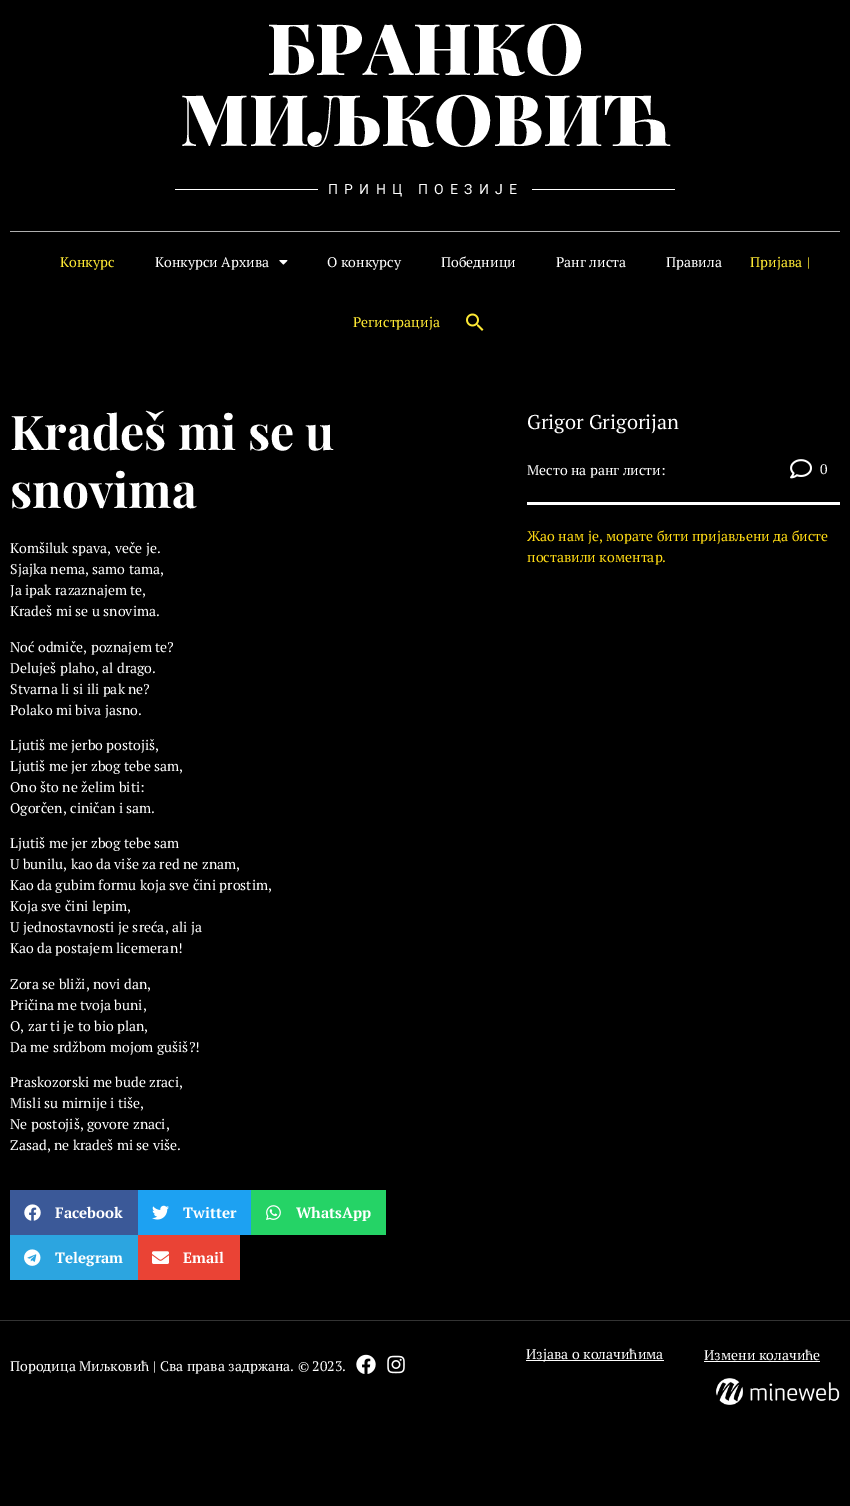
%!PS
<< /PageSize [850 1506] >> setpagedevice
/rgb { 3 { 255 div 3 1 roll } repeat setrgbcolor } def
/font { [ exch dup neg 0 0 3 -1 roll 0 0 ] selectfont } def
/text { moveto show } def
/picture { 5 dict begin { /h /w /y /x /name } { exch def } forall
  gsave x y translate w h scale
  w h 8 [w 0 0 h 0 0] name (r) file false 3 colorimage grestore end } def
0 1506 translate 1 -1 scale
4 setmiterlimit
0 0 0 rgb
0 0 850 1506 rectfill
255 255 255 rgb
175 189 143 1 rectfill
532 189 143 1 rectfill
175 175 175 rgb
10 231 830 1 rectfill
(img_01.rgb) 279 260 9 5 picture
(img_02.rgb) 466 313 18 18 picture
59 89 152 rgb
10 1190 128 45 rectfill
(img_03.rgb) 24 1204 17 17 picture
29 161 242 rgb
138 1190 113 45 rectfill
(img_04.rgb) 152 1205 17 15 picture
37 211 102 rgb
251 1190 135 45 rectfill
(img_05.rgb) 266 1205 15 15 picture
44 165 224 rgb
10 1235 128 45 rectfill
(img_06.rgb) 24 1249 17 17 picture
234 67 53 rgb
138 1235 102 45 rectfill
(img_07.rgb) 152 1251 17 13 picture
255 255 255 rgb
527 502 313 3 rectfill
(img_08.rgb) 790 459 22 20 picture
51 51 51 rgb
0 1320 850 1 rectfill
255 255 255 rgb
526 1360 138 1 rectfill
704 1361 116 1 rectfill
(img_09.rgb) 716 1378 124 27 picture
(img_10.rgb) 356 1354 20 20 picture
(img_11.rgb) 387 1355 18 19 picture
/PlayfairDisplay-Black 71 font
(БРАНКО) 267 75 text
(МИЉКОВИЋ) 180 146 text
/Roboto-Regular 14 font
328 194 moveto 6.25 0 (ПРИНЦ ПОЕЗИЈЕ) ashow
/PTSerif-Regular 14 font
254 233 52 rgb
(Конкурс) 60 267 text
255 255 255 rgb
(Конкурси Архива) 155 267 text
(О конкурсу) 327 267 text
(Победници) 441 267 text
(Ранг листа) 556 267 text
(Правила) 666 267 text
254 233 52 rgb
(Пријава) 750 267 text
(|) 807 267 text
(Регистрација) 353 327 text
/PlayfairDisplay-Bold 48 font
255 255 255 rgb
(Kradeš mi se u) 10 450 text
(snovima) 10 508 text
/PTSerif-Regular 14 font
(Komšiluk spava, veče je.) 10 553 text
(Sjajka nema, samo tama,) 10 574 text
(Ja ipak razaznajem te,) 10 595 text
(Kradeš mi se u snovima.) 10 616 text
(Noć odmiče, poznajem te?) 10 652 text
(Deluješ plaho, al drago.) 10 673 text
(Stvarna li si ili pak ne?) 10 694 text
(Polako mi biva jasno.) 10 715 text
(Ljutiš me jerbo postojiš,) 10 750 text
(Ljutiš me jer zbog tebe sam,) 10 771 text
(Ono što ne želim biti:) 10 792 text
(Ogorčen, ciničan i sam.) 10 813 text
(Ljutiš me jer zbog tebe sam) 10 848 text
(U bunilu, kao da više za red ne znam,) 10 869 text
(Kao da gubim formu koja sve čini prostim,) 10 890 text
(Koja sve čini lepim,) 10 911 text
(U jednostavnosti je sreća, ali ja) 10 932 text
(Kao da postajem licemeran!) 10 953 text
(Zora se bliži, novi dan,) 10 989 text
(Pričina me tvoja buni,) 10 1010 text
(O, zar ti je to bio plan,) 10 1031 text
(Da me srdžbom mojom gušiš?!) 10 1052 text
(Praskozorski me bude zraci,) 10 1087 text
(Misli su mirnije i tiše,) 10 1108 text
(Ne postojiš, govore znaci,) 10 1129 text
(Zasad, ne kradeš mi se više.) 10 1150 text
/PTSerif-Bold 15 font
(Facebook) 55 1218 text
(Twitter) 183 1218 text
(WhatsApp) 296 1218 text
(Telegram) 55 1263 text
(Email) 183 1263 text
/PTSerif-Regular 20 font
(Grigor Grigorijan) 527 429 text
/PTSerif-Regular 14 font
(Место на ранг листи:) 527 475 text
(0) 820 474 text
254 218 20 rgb
(Жао нам је, морате бити пријављени да бисте) 527 541 text
(поставили коментар.) 527 562 text
255 255 255 rgb
(Изјава о колачићима) 526 1359 text
(Измени колачиће) 704 1360 text
(Породица Миљковић | Сва права задржана. © 2023.) 10 1371 text
showpage
